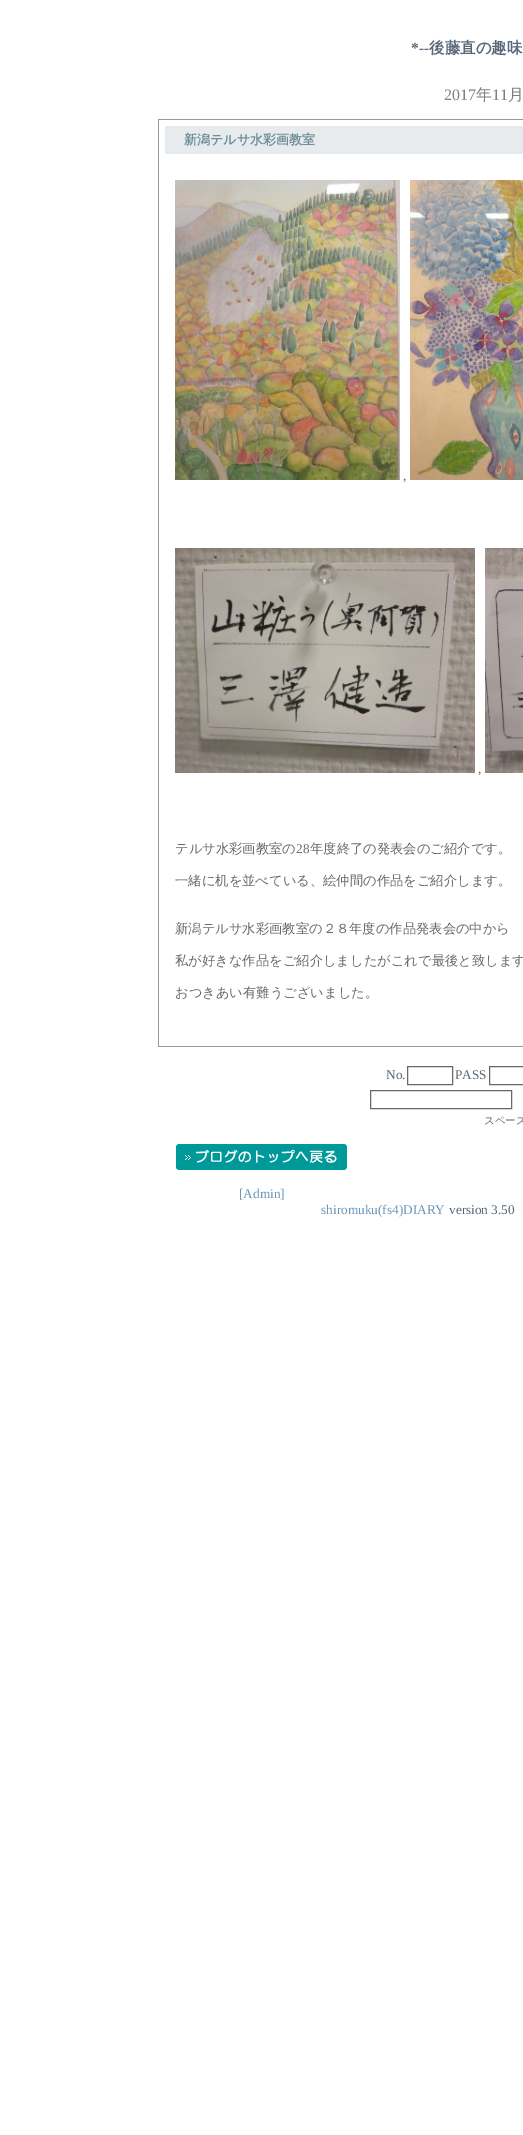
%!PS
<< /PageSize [523 2135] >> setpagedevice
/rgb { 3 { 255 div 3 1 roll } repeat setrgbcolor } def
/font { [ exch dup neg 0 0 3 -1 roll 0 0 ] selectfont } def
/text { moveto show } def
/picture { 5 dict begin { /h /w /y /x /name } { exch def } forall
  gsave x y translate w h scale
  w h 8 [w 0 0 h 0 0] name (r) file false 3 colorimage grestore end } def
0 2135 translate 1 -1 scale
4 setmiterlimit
255 255 255 rgb
0 0 523 2135 rectfill
151 153 156 rgb
158 119 365 1 rectfill
158 1046 365 1 rectfill
158 119 1 928 rectfill
232 235 238 rgb
165 126 358 28 rectfill
(img_01.rgb) 175 180 225 300 picture
(img_02.rgb) 410 180 113 300 picture
(img_03.rgb) 175 548 300 225 picture
(img_04.rgb) 485 548 38 225 picture
105 105 105 rgb
407.5 1066.5 45 18 rectstroke
489.5 1066.5 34 18 rectstroke
370.5 1090.5 141 18 rectstroke
(img_05.rgb) 176 1144 171 26 picture
/LiberationSerif-Bold 15.5 font
87 104 121 rgb
(*--) 411 53 text
/WenQuanYiZenHei-Bold 15.5 font
(後藤直の趣味) 429 53 text
/LiberationSerif-Regular 16 font
128 128 128 rgb
(2017) 444 100 text
/WenQuanYiZenHei-Medium 16 font
(年) 476 100 text
/LiberationSerif-Regular 16 font
(11) 492 100 text
/WenQuanYiZenHei-Medium 16 font
(月) 508 100 text
/WenQuanYiZenHei-Bold 13 font
110 143 153 rgb
(新潟テルサ水彩画教室) 184 144 text
/LiberationSerif-Regular 13.3 font
105 105 105 rgb
(,) 403 480 text
(,) 478 773 text
/WenQuanYiZenHei-Medium 13.3 font
(テルサ水彩画教室の) 175 853 text
/LiberationSerif-Regular 13.3 font
(28) 296 853 text
/WenQuanYiZenHei-Medium 13.3 font
(年度終了の発表会のご紹介です。) 310 853 text
(一緒に机を並べている、絵仲間の作品をご紹介します。) 175 885 text
(新潟テルサ水彩画教室の２８年度の作品発表会の中から) 175 933 text
(私が好きな作品をご紹介しましたがこれで最後と致します) 175 965 text
(おつきあい有難うございました。) 175 997 text
/LiberationSerif-Regular 13.3 font
87 104 121 rgb
(No.) 386 1079 text
(PASS) 455 1079 text
/WenQuanYiZenHei-Medium 10.5 font
(スペース) 484 1124 text
/LiberationSerif-Regular 13.3 font
106 150 184 rgb
([Admin]) 239 1198 text
(shiromuku\(fs4\)DIARY) 321 1214 text
87 104 121 rgb
(version 3.50) 449 1214 text
showpage
